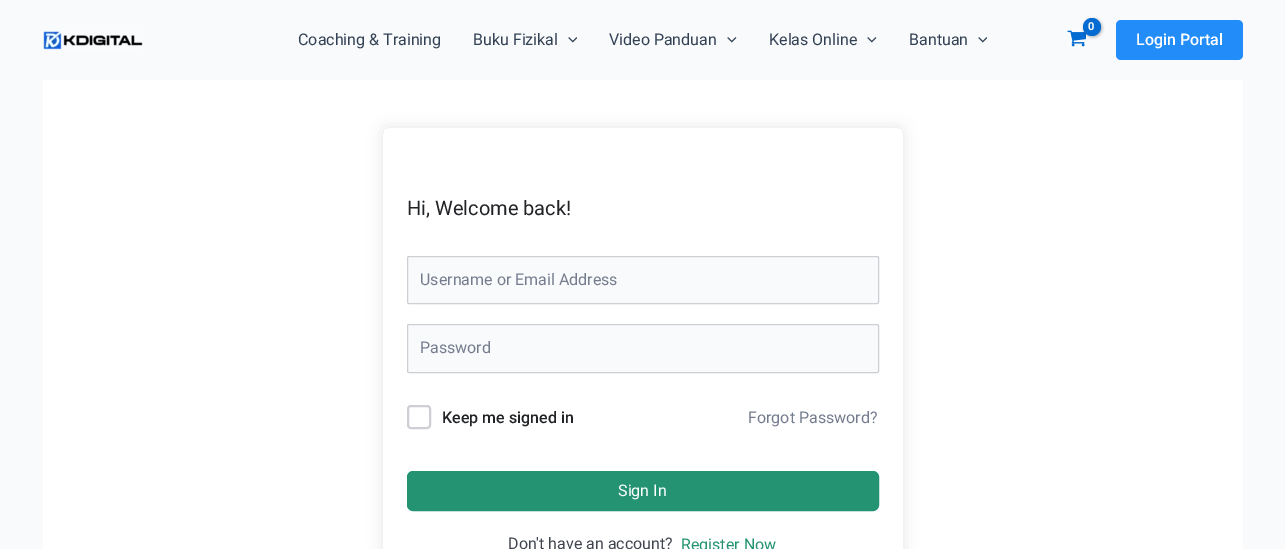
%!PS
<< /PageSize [1285 549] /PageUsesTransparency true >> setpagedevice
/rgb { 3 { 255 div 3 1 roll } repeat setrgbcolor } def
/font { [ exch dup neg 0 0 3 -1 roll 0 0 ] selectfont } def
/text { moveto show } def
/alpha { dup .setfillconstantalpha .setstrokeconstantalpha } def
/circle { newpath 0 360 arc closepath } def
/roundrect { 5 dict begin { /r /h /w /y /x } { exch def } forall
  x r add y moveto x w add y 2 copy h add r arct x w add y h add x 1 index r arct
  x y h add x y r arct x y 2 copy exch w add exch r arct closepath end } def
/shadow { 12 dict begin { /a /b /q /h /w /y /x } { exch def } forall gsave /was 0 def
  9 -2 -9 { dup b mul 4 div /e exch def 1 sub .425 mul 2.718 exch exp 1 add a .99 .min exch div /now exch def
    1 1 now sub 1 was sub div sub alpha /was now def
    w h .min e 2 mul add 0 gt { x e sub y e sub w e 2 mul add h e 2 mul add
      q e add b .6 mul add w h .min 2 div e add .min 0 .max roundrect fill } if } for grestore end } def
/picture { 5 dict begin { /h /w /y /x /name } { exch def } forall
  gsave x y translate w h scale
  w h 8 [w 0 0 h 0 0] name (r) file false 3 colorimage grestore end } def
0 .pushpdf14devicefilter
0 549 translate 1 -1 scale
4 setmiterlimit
249 250 251 rgb
0 0 1285 549 rectfill
(img_01.rgb) 43 31 100 19 picture
(img_02.rgb) 568 37 9 6 picture
(img_03.rgb) 727 37 10 6 picture
(img_03.rgb) 867 37 10 6 picture
(img_02.rgb) 978 37 9 6 picture
(img_04.rgb) 1067 30 19 17 picture
0 0 0 rgb
1084 19 18 18 9 1.5 0.3 shadow
4 107 210 rgb
1092 27 9 circle fill
34 140 249 rgb
1116 20 127 40 5 roundrect fill
255 255 255 rgb
43 80 1200 469 rectfill
gsave
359 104 moveto 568 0 rlineto 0 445 rlineto -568 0 rlineto closepath 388 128 moveto 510 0 rlineto 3 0 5 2 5 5 rcurveto 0 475 rlineto 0 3 -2 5 -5 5 rcurveto -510 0 rlineto -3 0 -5 -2 -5 -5 rcurveto 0 -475 rlineto 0 -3 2 -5 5 -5 rcurveto closepath eoclip newpath
0 0 0 rgb
383 128 520 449 5 7.5 0.1 shadow
grestore
249 250 251 rgb
407.5 256.5 471 47 1.5 roundrect gsave fill grestore
205 207 213 rgb
stroke
249 250 251 rgb
407.5 324.5 471 48 1.5 roundrect gsave fill grestore
205 207 213 rgb
stroke
2 setlinewidth
408 406 22 22 3 roundrect stroke
35 147 113 rgb
407.5 471.5 471 39 5.5 roundrect gsave fill grestore
1 setlinewidth
stroke
/Roboto-Regular 16 font
51 65 85 rgb
(Coaching & Training) 298 45 text
(Buku Fizikal) 473 45 text
(Video Panduan) 609 45 text
(Kelas Online) 769 45 text
(Bantuan) 909 45 text
/Roboto-Bold 11 font
255 255 255 rgb
(0) 1088 30 text
/Roboto-Medium 16 font
(Login Portal) 1136 45 text
/Roboto-Regular 20 font
33 35 39 rgb
(Hi, Welcome back!) 407 215 text
/Roboto-Regular 16 font
117 124 142 rgb
(Username or Email Address) 420 285 text
(Password) 420 353 text
/Roboto-Medium 16 font
33 35 39 rgb
(Keep me signed in) 442 423 text
/Roboto-Regular 16 font
117 124 142 rgb
(Forgot Password?) 748 423 text
255 255 255 rgb
(Sign In) 618 496 text
65 69 79 rgb
(Don't have an account?) 508 549 text
35 147 113 rgb
(Register Now) 681 550 text
.poppdf14devicefilter showpage
